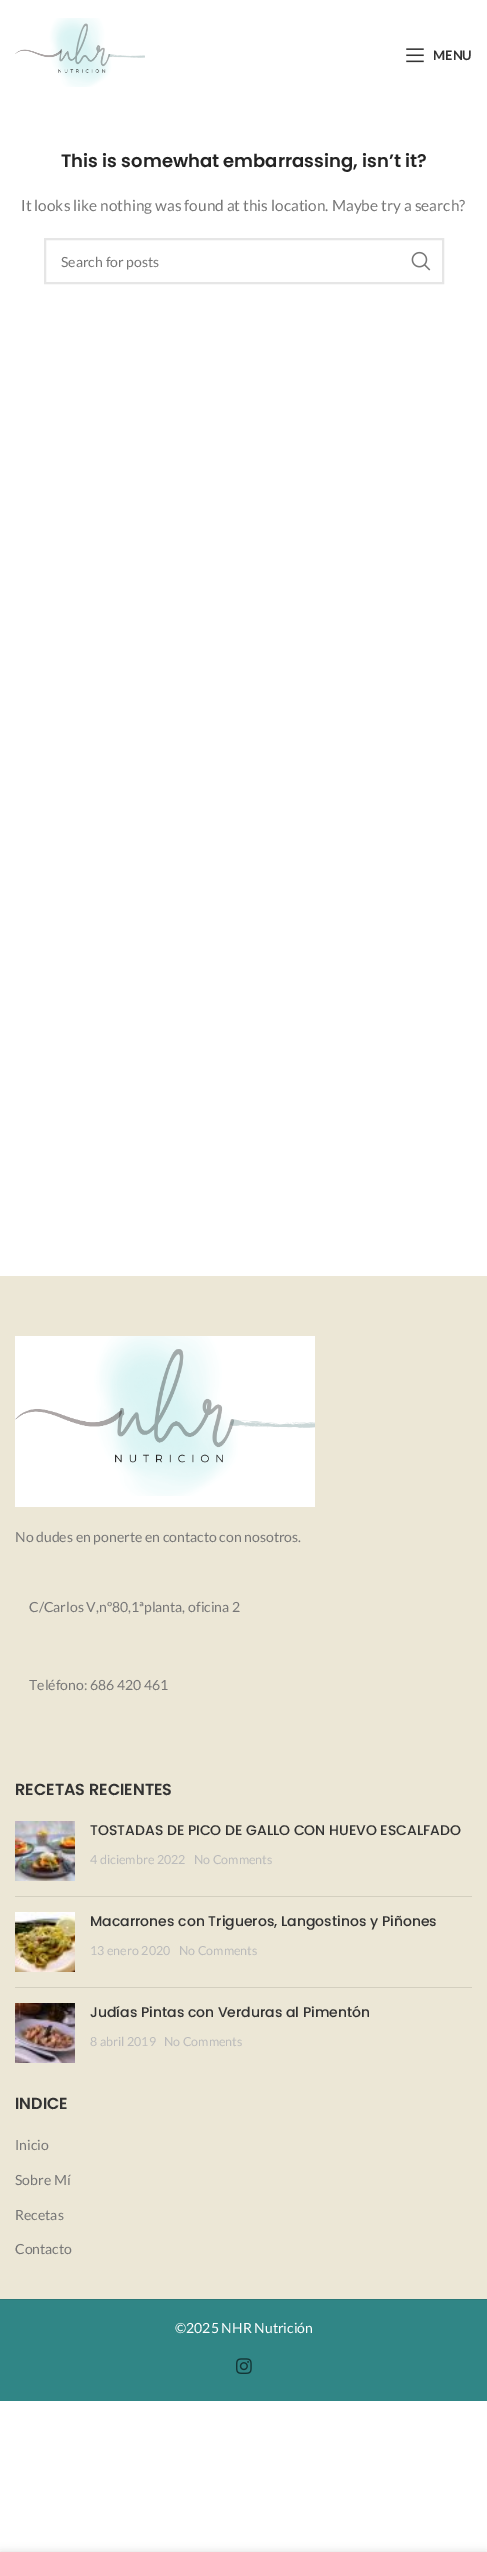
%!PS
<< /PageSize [487 2552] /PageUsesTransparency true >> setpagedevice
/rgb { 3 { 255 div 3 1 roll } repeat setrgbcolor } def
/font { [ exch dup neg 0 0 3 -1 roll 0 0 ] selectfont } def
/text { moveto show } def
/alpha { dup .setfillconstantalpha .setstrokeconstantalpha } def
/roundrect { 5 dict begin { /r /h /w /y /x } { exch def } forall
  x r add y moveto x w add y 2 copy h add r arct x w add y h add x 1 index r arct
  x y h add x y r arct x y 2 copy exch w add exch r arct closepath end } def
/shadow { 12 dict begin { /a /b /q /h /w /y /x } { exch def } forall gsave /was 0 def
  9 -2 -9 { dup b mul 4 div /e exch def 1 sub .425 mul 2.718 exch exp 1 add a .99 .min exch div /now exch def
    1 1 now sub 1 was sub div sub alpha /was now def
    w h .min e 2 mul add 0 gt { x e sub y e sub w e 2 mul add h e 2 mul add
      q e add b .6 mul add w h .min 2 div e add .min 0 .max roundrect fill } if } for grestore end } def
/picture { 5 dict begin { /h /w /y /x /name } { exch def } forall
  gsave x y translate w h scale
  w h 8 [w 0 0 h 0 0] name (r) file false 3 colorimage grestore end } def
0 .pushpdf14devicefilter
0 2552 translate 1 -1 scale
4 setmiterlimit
255 255 255 rgb
0 0 487 2552 rectfill
(img_01.rgb) 15 18 130 69 picture
(img_02.rgb) 406 48 18 15 picture
230 230 230 rgb
2 setlinewidth
45 239 398 44 rectstroke
(img_03.rgb) 411 251 20 20 picture
236 231 214 rgb
0 1276 487 1023 rectfill
(img_04.rgb) 15 1336 300 171 picture
211 207 191 rgb
15 1896 457 1 rectfill
(img_05.rgb) 15 1821 60 60 picture
15 1987 457 1 rectfill
(img_06.rgb) 15 1912 60 60 picture
(img_07.rgb) 15 2003 60 60 picture
48 134 134 rgb
0 2300 487 101 rectfill
43 120 120 rgb
0 2299 487 1 rectfill
(img_08.rgb) 236 2358 16 16 picture
0 0 0 rgb
0 2552 487 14 0 4.5 0.14 shadow
/Lato-Bold 13 font
51 51 51 rgb
(MENU) 433 60 text
/Poppins-SemiBold 18 font
36 36 36 rgb
(This is somewhat embarrassing, isn’t it?) 61 167 text
/Lato-Regular 15.4 font
119 119 119 rgb
(It looks like nothing was found at this location. Maybe try a search?) 21 211 text
/Lato-Regular 14 font
(Search for posts) 61 267 text
(No dudes en ponerte en contacto con nosotros.) 15 1542 text
(C/Carlos V,nº80,1ªplanta, oficina 2) 29 1612 text
(Teléfono: 686 420 461) 29 1690 text
/Poppins-SemiBold 16 font
51 51 51 rgb
(RECETAS RECIENTES) 15 1795 text
/Poppins-Medium 14 font
(TOSTADAS DE PICO DE GALLO CON HUEVO ESCALFADO) 90 1835 text
/Lato-Regular 12.5 font
187 187 187 rgb
(4 diciembre 2022) 90 1864 text
(No Comments) 194 1864 text
/Poppins-Medium 14 font
51 51 51 rgb
(Macarrones con Trigueros, Langostinos y Piñones) 90 1926 text
/Lato-Regular 12.5 font
187 187 187 rgb
(13 enero 2020) 90 1955 text
(No Comments) 179 1955 text
/Poppins-Medium 14 font
51 51 51 rgb
(Judías Pintas con Verduras al Pimentón) 90 2017 text
/Lato-Regular 12.5 font
187 187 187 rgb
(8 abril 2019) 90 2046 text
(No Comments) 164 2046 text
/Poppins-SemiBold 16 font
51 51 51 rgb
(INDICE) 15 2109 text
/Lato-Regular 14 font
119 119 119 rgb
(Inicio) 15 2150 text
(Sobre Mí) 15 2185 text
(Recetas) 15 2220 text
(Contacto) 15 2254 text
255 255 255 rgb
(©2025 NHR Nutrición) 175 2333 text
.poppdf14devicefilter showpage
